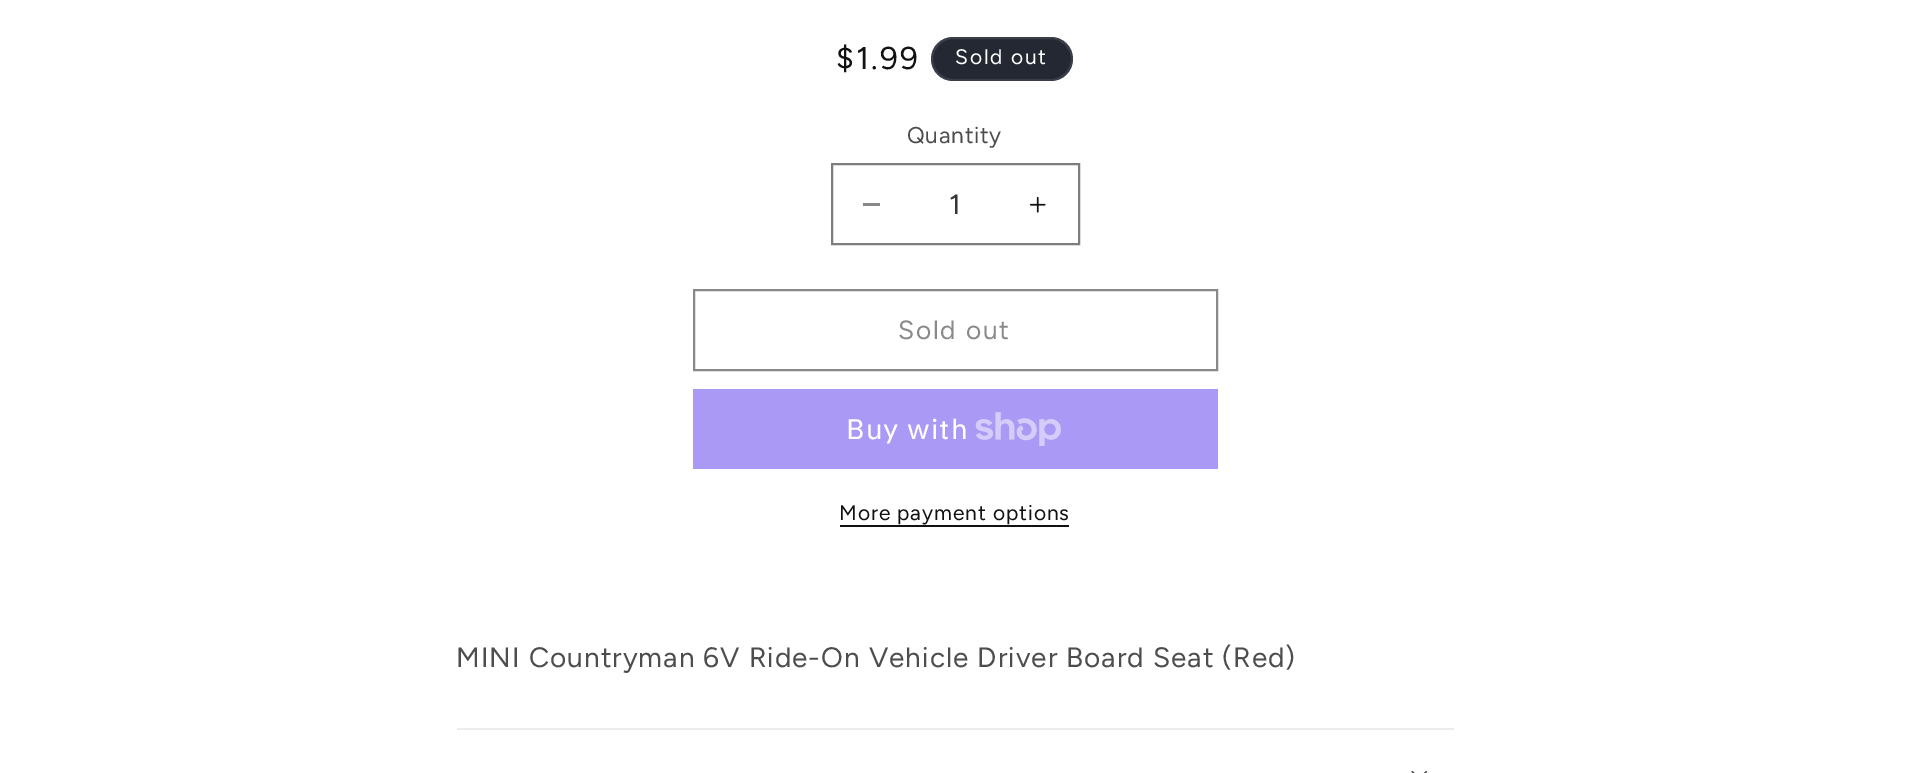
%!PS
<< /PageSize [1909 773] /PageUsesTransparency true >> setpagedevice
/rgb { 3 { 255 div 3 1 roll } repeat setrgbcolor } def
/font { [ exch dup neg 0 0 3 -1 roll 0 0 ] selectfont } def
/text { moveto show } def
/alpha { dup .setfillconstantalpha .setstrokeconstantalpha } def
/roundrect { 5 dict begin { /r /h /w /y /x } { exch def } forall
  x r add y moveto x w add y 2 copy h add r arct x w add y h add x 1 index r arct
  x y h add x y r arct x y 2 copy exch w add exch r arct closepath end } def
/picture { 5 dict begin { /h /w /y /x /name } { exch def } forall
  gsave x y translate w h scale
  w h 8 [w 0 0 h 0 0] name (r) file false 3 colorimage grestore end } def
0 .pushpdf14devicefilter
0 773 translate 1 -1 scale
4 setmiterlimit
255 255 255 rgb
0 0 1909 773 rectfill
36 40 51 rgb
931 37 142 44 22 roundrect fill
0.1 alpha
255 255 255 rgb
2 setlinewidth
932 38 140 42 21 roundrect stroke
1 alpha
137 137 137 rgb
863 203 17 3 rectfill
(img_01.rgb) 1029 196 17 17 picture
125 125 125 rgb
832 164 247 80 rectstroke
137 137 137 rgb
694 290 523 80 rectstroke
170 153 245 rgb
693 389 525 80 rectfill
(img_02.rgb) 975 412 86 34 picture
18 18 18 rgb
840 525 229 2 rectfill
236 236 236 rgb
457 728 997 2 rectfill
(img_03.rgb) 1411 770 17 3 picture
/Figtree-Regular 31.5 font
18 18 18 rgb
836 69 moveto 2.25 0 ($1.99) ashow
/Figtree-Regular 21 font
255 255 255 rgb
955 64 moveto 1.75 0 (Sold out) ashow
/Figtree-Regular 22.75 font
77 77 77 rgb
907 143 moveto 0.75 0 (Quantity) ashow
/Figtree-Regular 28 font
54 54 54 rgb
(1) 949 214 text
/Figtree-Regular 26.25 font
137 137 137 rgb
898 339 moveto 1.75 0 (Sold out) ashow
/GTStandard-Regular 28 font
255 255 255 rgb
846 439 moveto 1.05 0 (Buy with) ashow
/Figtree-Regular 21 font
18 18 18 rgb
839 520 moveto 0.9 0 (More payment options) ashow
/Figtree-Regular 28 font
77 77 77 rgb
456 667 moveto 1.05 0 (MINI Countryman 6V Ride-On Vehicle Driver Board Seat \(Red\)) ashow
.poppdf14devicefilter showpage
